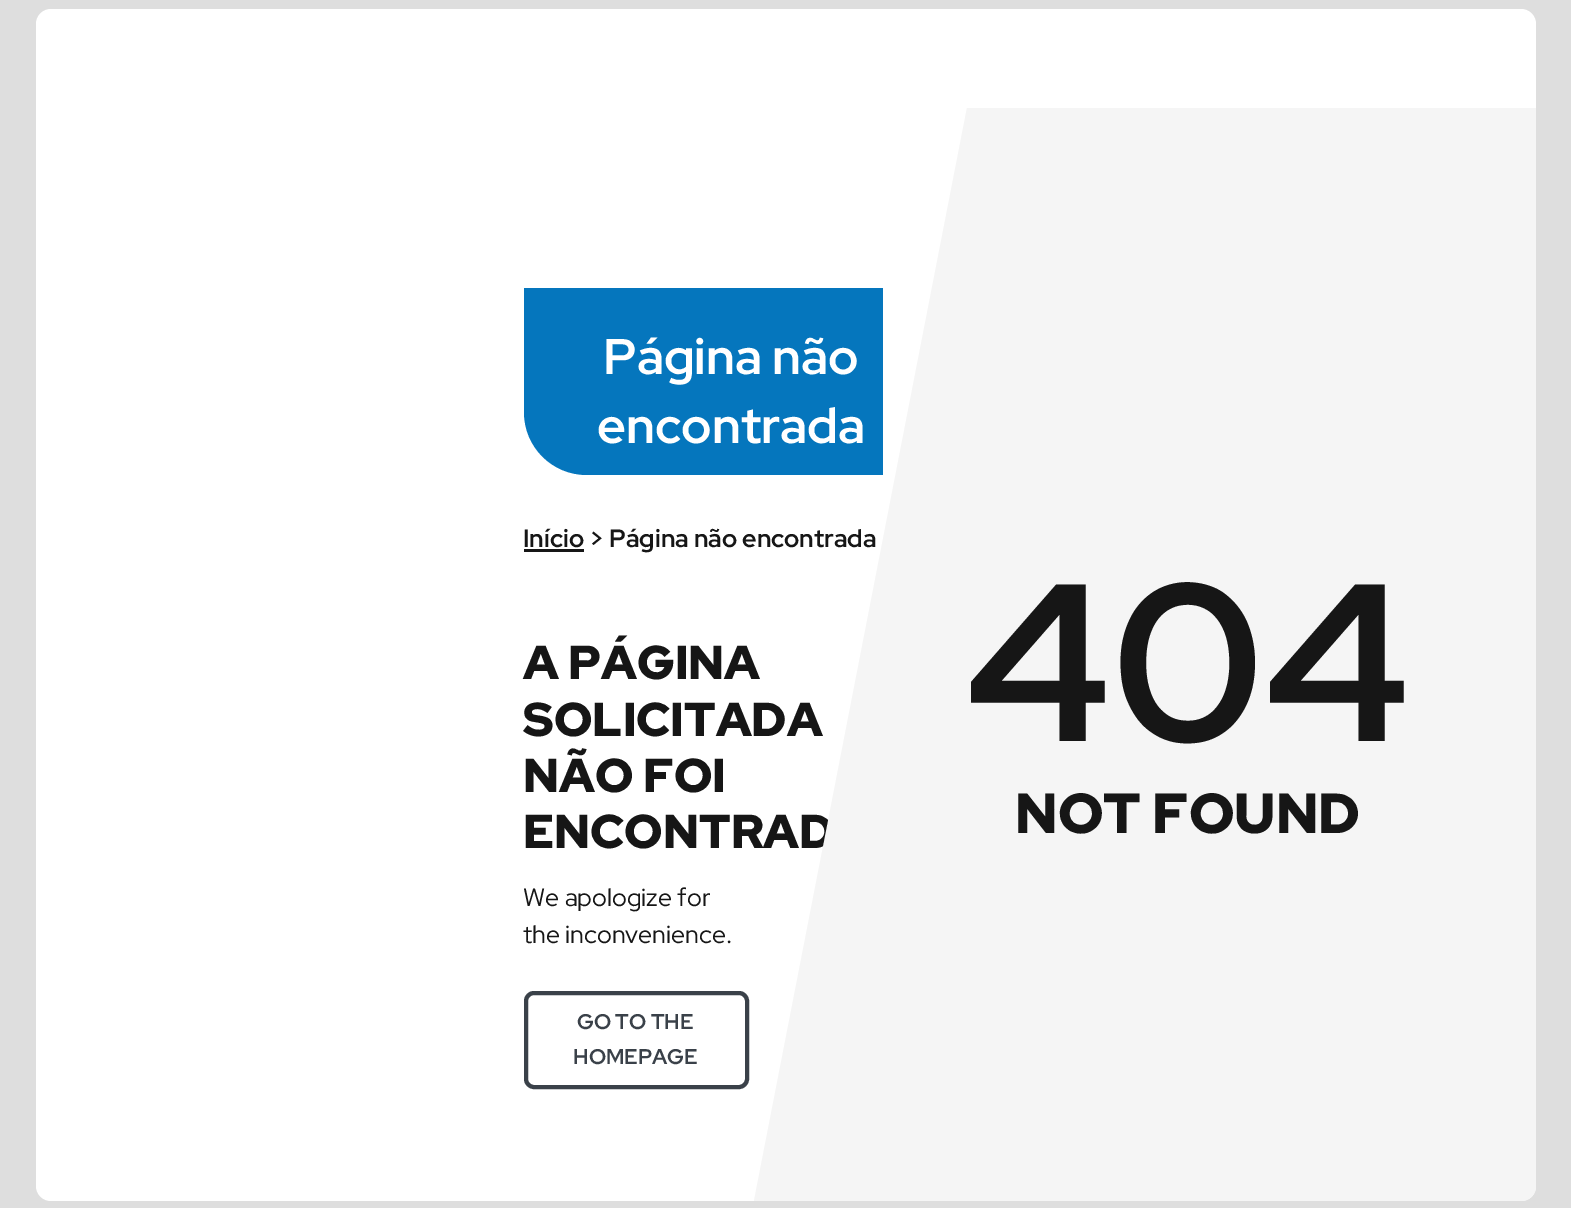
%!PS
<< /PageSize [1571 1208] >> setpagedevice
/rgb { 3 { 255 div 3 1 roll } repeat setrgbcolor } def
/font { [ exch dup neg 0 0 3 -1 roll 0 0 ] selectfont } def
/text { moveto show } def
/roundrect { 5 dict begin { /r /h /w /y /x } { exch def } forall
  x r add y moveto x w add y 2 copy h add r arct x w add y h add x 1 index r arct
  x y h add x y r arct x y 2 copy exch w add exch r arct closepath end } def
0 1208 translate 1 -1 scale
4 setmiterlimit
222 222 222 rgb
0 0 1571 1208 rectfill
255 255 255 rgb
36 9 1500 1192 15 roundrect fill
5 118 189 rgb
524 288 moveto 359 0 rlineto 0 187 rlineto -296 0 rlineto -35 0 -63 -28 -63 -63 rcurveto closepath fill
22 22 22 rgb
524 549 60 3 rectfill
58 65 73 rgb
4 setlinewidth
526 993 221 94 8 roundrect stroke
/RedHatDisplay-Bold 50 font
255 255 255 rgb
(Página não) 603 374 text
(encontrada) 597 443 text
/RedHatDisplay-Bold 25 font
22 22 22 rgb
(Início > Página não encontrada) 523 547 text
/RedHatDisplay-Black 47.5 font
(A PÁGINA) 523 679 text
(SOLICITADA) 523 736 text
(NÃO FOI) 523 792 text
(ENCONTRAD) 523 848 text
/RedHatDisplay-Regular 25 font
(We apologize for) 523 906 text
(the inconvenience.) 523 943 text
/RedHatDisplay-Bold 21.25 font
58 65 73 rgb
(GO TO THE) 577 1029 text
(HOMEPAGE) 573 1064 text
245 245 245 rgb
967 108 moveto -213 1093 rlineto 660 0 rlineto 9 0 17 -7 18 -15 rcurveto 104 -534 rlineto 0 -544 rlineto closepath fill
1199 109 moveto 337 0 rlineto 0 1077 rlineto 0 8.5 -6.5 15 -15 15 rcurveto -322 0 rlineto closepath fill
/RedHatDisplay-Bold 224 font
22 22 22 rgb
(404) 965 741 text
/RedHatDisplay-Black 56.25 font
(NOT FOUND) 1015 833 text
showpage
